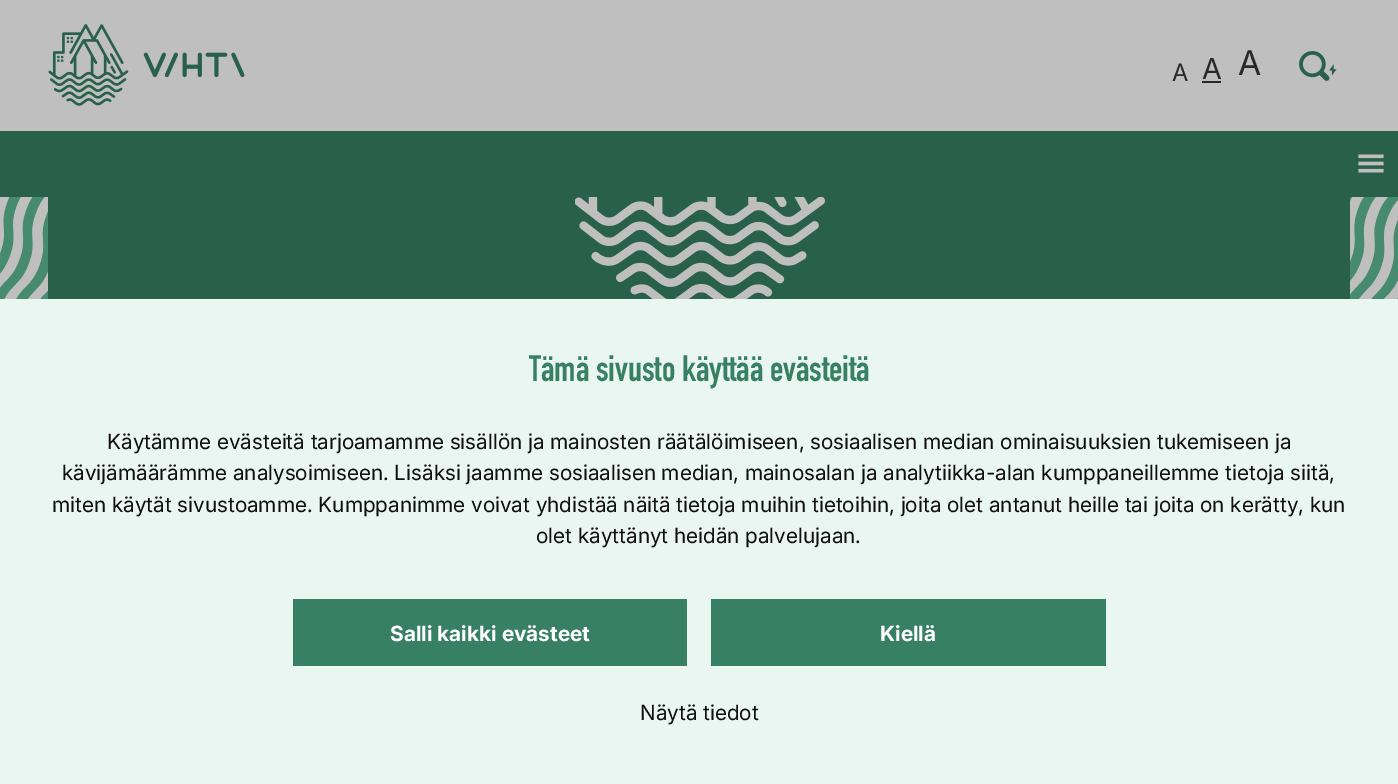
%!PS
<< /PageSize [1398 784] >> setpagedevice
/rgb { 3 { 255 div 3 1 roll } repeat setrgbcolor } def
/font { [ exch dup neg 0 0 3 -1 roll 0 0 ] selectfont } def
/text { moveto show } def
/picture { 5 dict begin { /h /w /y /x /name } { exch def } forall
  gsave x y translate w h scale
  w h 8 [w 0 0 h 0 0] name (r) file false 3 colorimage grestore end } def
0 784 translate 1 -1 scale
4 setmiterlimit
191 191 191 rgb
0 0 1398 784 rectfill
(img_01.rgb) 48 24 197 82 picture
41 40 39 rgb
1202 81 19 2 rectfill
(img_02.rgb) 1299 51 38 30 picture
41 96 76 rgb
0 131 1398 66 rectfill
(img_03.rgb) 1358 154 26 19 picture
(img_04.rgb) 0 197 1398 102 picture
48 197 1302 102 rectfill
(img_05.rgb) 575 197 250 102 picture
234 246 241 rgb
0 299 1398 485 rectfill
55 128 101 rgb
293 599 394 67 rectfill
711 599 395 67 rectfill
/Inter-Regular 24 font
41 40 39 rgb
(A) 1172 81 text
/Inter-Regular 29 font
(A) 1202 79 text
/Inter-Regular 34 font
(A) 1238 75 text
/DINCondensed-Bold 36 font
55 128 101 rgb
(Tämä sivusto käyttää evästeitä) 529 381 text
/Inter-Regular 21 font
15 15 15 rgb
(Käytämme evästeitä tarjoamamme sisällön ja mainosten räätälöimiseen, sosiaalisen median ominaisuuksien tukemiseen ja) 107 449 text
(kävijämäärämme analysoimiseen. Lisäksi jaamme sosiaalisen median, mainosalan ja analytiikka-alan kumppaneillemme tietoja siitä,) 62 480 text
(miten käytät sivustoamme. Kumppanimme voivat yhdistää näitä tietoja muihin tietoihin, joita olet antanut heille tai joita on kerätty, kun) 52 512 text
(olet käyttänyt heidän palvelujaan.) 536 543 text
/Inter-Bold 21 font
255 255 255 rgb
(Salli kaikki evästeet) 390 641 text
(Kiellä) 880 641 text
/Inter-Regular 21 font
15 15 15 rgb
(Näytä tiedot) 640 720 text
showpage
